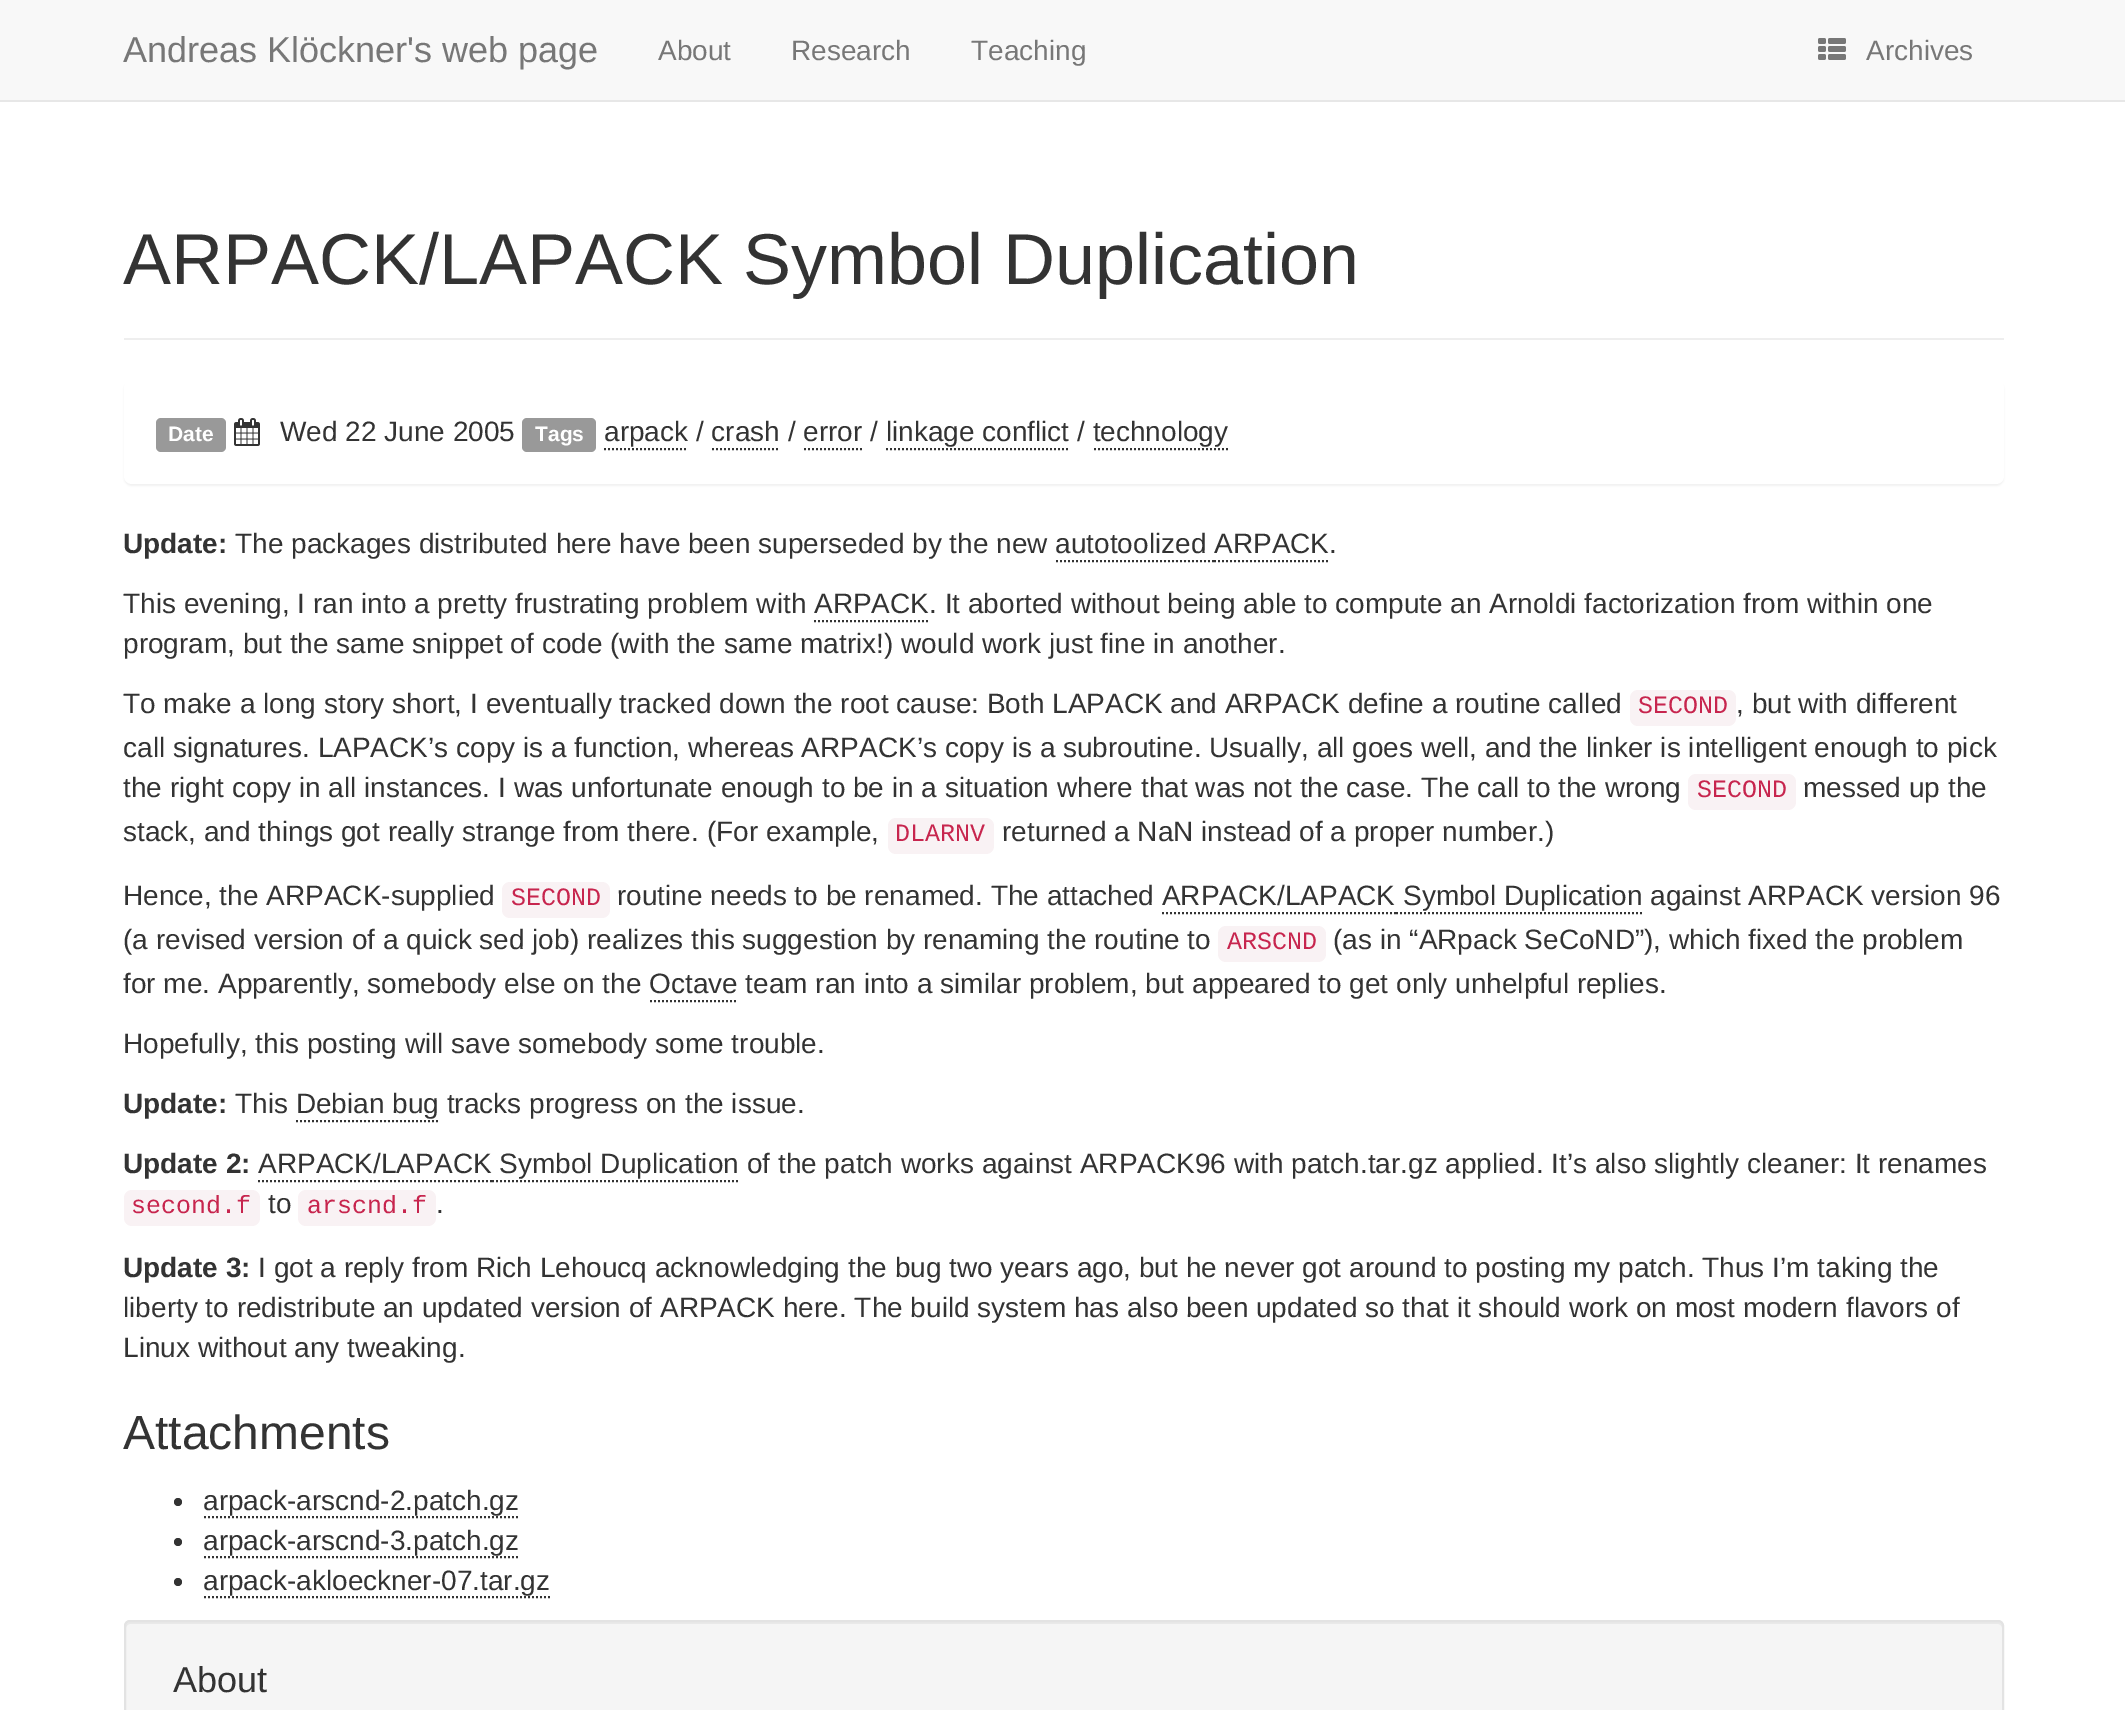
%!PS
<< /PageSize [2125 1710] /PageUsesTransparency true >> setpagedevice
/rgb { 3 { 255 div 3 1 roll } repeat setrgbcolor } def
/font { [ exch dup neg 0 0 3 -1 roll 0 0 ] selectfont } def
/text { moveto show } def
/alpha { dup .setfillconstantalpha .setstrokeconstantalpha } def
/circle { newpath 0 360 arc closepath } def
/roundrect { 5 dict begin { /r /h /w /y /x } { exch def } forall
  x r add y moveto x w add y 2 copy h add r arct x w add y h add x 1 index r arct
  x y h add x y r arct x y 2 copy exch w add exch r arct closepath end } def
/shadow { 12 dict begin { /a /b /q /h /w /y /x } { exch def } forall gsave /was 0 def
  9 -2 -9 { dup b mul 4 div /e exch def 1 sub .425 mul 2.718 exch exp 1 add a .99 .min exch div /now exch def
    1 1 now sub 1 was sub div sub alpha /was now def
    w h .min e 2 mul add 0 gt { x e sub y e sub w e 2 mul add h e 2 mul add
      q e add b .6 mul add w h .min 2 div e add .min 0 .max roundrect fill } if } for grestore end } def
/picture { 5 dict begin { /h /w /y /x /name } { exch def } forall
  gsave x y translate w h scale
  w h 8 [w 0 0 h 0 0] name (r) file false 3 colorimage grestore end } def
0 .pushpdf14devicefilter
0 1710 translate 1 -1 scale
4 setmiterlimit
255 255 255 rgb
0 0 2125 1710 rectfill
248 248 248 rgb
0 0 2125 100 rectfill
231 231 231 rgb
0 100 2125 2 rectfill
(img_01.rgb) 1818 38 28 22 picture
238 238 238 rgb
124 338 1880 2 rectfill
0 0 0 rgb
124 382 1880 104 8 1 0.05 shadow
255 255 255 rgb
124 380 1880 104 8 roundrect fill
153 153 153 rgb
156 418 70 34 5 roundrect fill
(img_02.rgb) 234 418 26 28 picture
522 418 74 34 5 roundrect fill
51 51 51 rgb
2 setlinewidth
[2 2] 0 setdash
604 449 moveto 84 0 rlineto stroke
712 449 moveto 68 0 rlineto stroke
804 449 moveto 58 0 rlineto stroke
886 449 moveto 184 0 rlineto stroke
1094 449 moveto 134 0 rlineto stroke
1056 561 moveto 158 0 rlineto stroke
1214 561 moveto 116 0 rlineto stroke
814 621 moveto 116 0 rlineto stroke
249 242 244 rgb
1630 690 106 36 8 roundrect fill
1688 774 108 36 8 roundrect fill
888 818 106 36 8 roundrect fill
502 882 108 36 8 roundrect fill
51 51 51 rgb
1162 913 moveto 116 0 rlineto stroke
[] 0 setdash
1278 913 moveto 2 0 rlineto 1282 913 moveto 2 0 rlineto stroke
[2 2] 0 setdash
1286 913 moveto 110 0 rlineto stroke
1396 913 moveto 248 0 rlineto stroke
249 242 244 rgb
1218 926 108 36 8 roundrect fill
51 51 51 rgb
650 1001 moveto 88 0 rlineto stroke
296 1121 moveto 142 0 rlineto stroke
258 1181 moveto 116 0 rlineto stroke
[] 0 setdash
374 1181 moveto 2 0 rlineto 378 1181 moveto 2 0 rlineto stroke
[2 2] 0 setdash
382 1181 moveto 110 0 rlineto stroke
492 1181 moveto 248 0 rlineto stroke
249 242 244 rgb
124 1190 136 36 8 roundrect fill
298 1190 138 36 8 roundrect fill
51 51 51 rgb
178 1502 4 circle fill
204 1517 moveto 314 0 rlineto stroke
178 1542 4 circle fill
204 1557 moveto 314 0 rlineto stroke
178 1582 4 circle fill
204 1597 moveto 346 0 rlineto stroke
245 245 245 rgb
124 1620 1880 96 6 roundrect fill
233 233 233 rgb
130 1624 moveto 1868 0 rlineto 2 0 4 2 4 4 rcurveto 0 -2 rlineto 0 -2 -2 -4 -4 -4 rcurveto -1868 0 rlineto -2 0 -4 2 -4 4 rcurveto 0 2 rlineto 0 -2 2 -4 4 -4 rcurveto closepath fill
227 227 227 rgb
[] 0 setdash
125 1621 1878 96 5 roundrect stroke
/LiberationSans-Regular 36 font
119 119 119 rgb
(Andreas Klöckner's web page) 123 62 text
/LiberationSans-Regular 28 font
(About) 658 60 text
(Research) 791 60 text
(Teaching) 971 60 text
(Archives) 1866 60 text
/LiberationSans-Regular 72 font
51 51 51 rgb
(ARPACK/LAPACK Symbol Duplication) 123 284 text
/LiberationSans-Bold 21 font
255 255 255 rgb
(Date) 168 441 text
/LiberationSans-Regular 28 font
51 51 51 rgb
(Wed 22 June 2005) 280 441 text
/LiberationSans-Bold 21 font
255 255 255 rgb
(Tags) 535 441 text
/LiberationSans-Regular 28 font
51 51 51 rgb
(arpack / crash / error / linkage conflict / technology) 604 441 text
/LiberationSans-Bold 28 font
(Update:) 123 553 text
/LiberationSans-Regular 28 font
(The packages distributed here have been superseded by the new autotoolized ARPACK.) 235 553 text
(This evening, I ran into a pretty frustrating problem with ARPACK. It aborted without being able to compute an Arnoldi factorization from within one) 123 613 text
(program, but the same snippet of code \(with the same matrix!\) would work just fine in another.) 123 653 text
(To make a long story short, I eventually tracked down the root cause: Both LAPACK and ARPACK define a routine called) 123 713 text
/LiberationMono-Regular 25 font
199 37 78 rgb
(SECOND) 1638 713 text
/LiberationSans-Regular 28 font
51 51 51 rgb
(, but with different) 1736 713 text
(call signatures. LAPACK’s copy is a function, whereas ARPACK’s copy is a subroutine. Usually, all goes well, and the linker is intelligent enough to pick) 123 757 text
(the right copy in all instances. I was unfortunate enough to be in a situation where that was not the case. The call to the wrong) 123 797 text
/LiberationMono-Regular 25 font
199 37 78 rgb
(SECOND) 1697 797 text
/LiberationSans-Regular 28 font
51 51 51 rgb
(messed up the) 1803 797 text
(stack, and things got really strange from there. \(For example,) 123 841 text
/LiberationMono-Regular 25 font
199 37 78 rgb
(DLARNV) 895 841 text
/LiberationSans-Regular 28 font
51 51 51 rgb
(returned a NaN instead of a proper number.\)) 1002 841 text
(Hence, the ARPACK-supplied) 123 905 text
/LiberationMono-Regular 25 font
199 37 78 rgb
(SECOND) 511 905 text
/LiberationSans-Regular 28 font
51 51 51 rgb
(routine needs to be renamed. The attached ARPACK/LAPACK Symbol Duplication against ARPACK version 96) 617 905 text
(\(a revised version of a quick sed job\) realizes this suggestion by renaming the routine to) 123 949 text
/LiberationMono-Regular 25 font
199 37 78 rgb
(ARSCND) 1227 949 text
/LiberationSans-Regular 28 font
51 51 51 rgb
(\(as in “ARpack SeCoND”\), which fixed the problem) 1333 949 text
(for me. Apparently, somebody else on the Octave team ran into a similar problem, but appeared to get only unhelpful replies.) 123 993 text
(Hopefully, this posting will save somebody some trouble.) 123 1053 text
/LiberationSans-Bold 28 font
(Update:) 123 1113 text
/LiberationSans-Regular 28 font
(This Debian bug tracks progress on the issue.) 235 1113 text
/LiberationSans-Bold 28 font
(Update 2:) 123 1173 text
/LiberationSans-Regular 28 font
(ARPACK/LAPACK Symbol Duplication of the patch works against ARPACK96 with patch.tar.gz applied. It’s also slightly cleaner: It renames) 258 1173 text
/LiberationMono-Regular 25 font
199 37 78 rgb
(second.f) 131 1213 text
/LiberationSans-Regular 28 font
51 51 51 rgb
(to) 268 1213 text
/LiberationMono-Regular 25 font
199 37 78 rgb
(arscnd.f) 307 1213 text
/LiberationSans-Regular 28 font
51 51 51 rgb
(.) 436 1213 text
/LiberationSans-Bold 28 font
(Update 3:) 123 1277 text
/LiberationSans-Regular 28 font
(I got a reply from Rich Lehoucq acknowledging the bug two years ago, but he never got around to posting my patch. Thus I’m taking the) 258 1277 text
(liberty to redistribute an updated version of ARPACK here. The build system has also been updated so that it should work on most modern flavors of) 123 1317 text
(Linux without any tweaking.) 123 1357 text
/LiberationSans-Regular 48 font
(Attachments) 123 1449 text
/LiberationSans-Regular 28 font
(arpack-arscnd-2.patch.gz) 203 1510 text
(arpack-arscnd-3.patch.gz) 203 1550 text
(arpack-akloeckner-07.tar.gz) 203 1590 text
/LiberationSans-Regular 36 font
(About) 173 1692 text
.poppdf14devicefilter showpage
